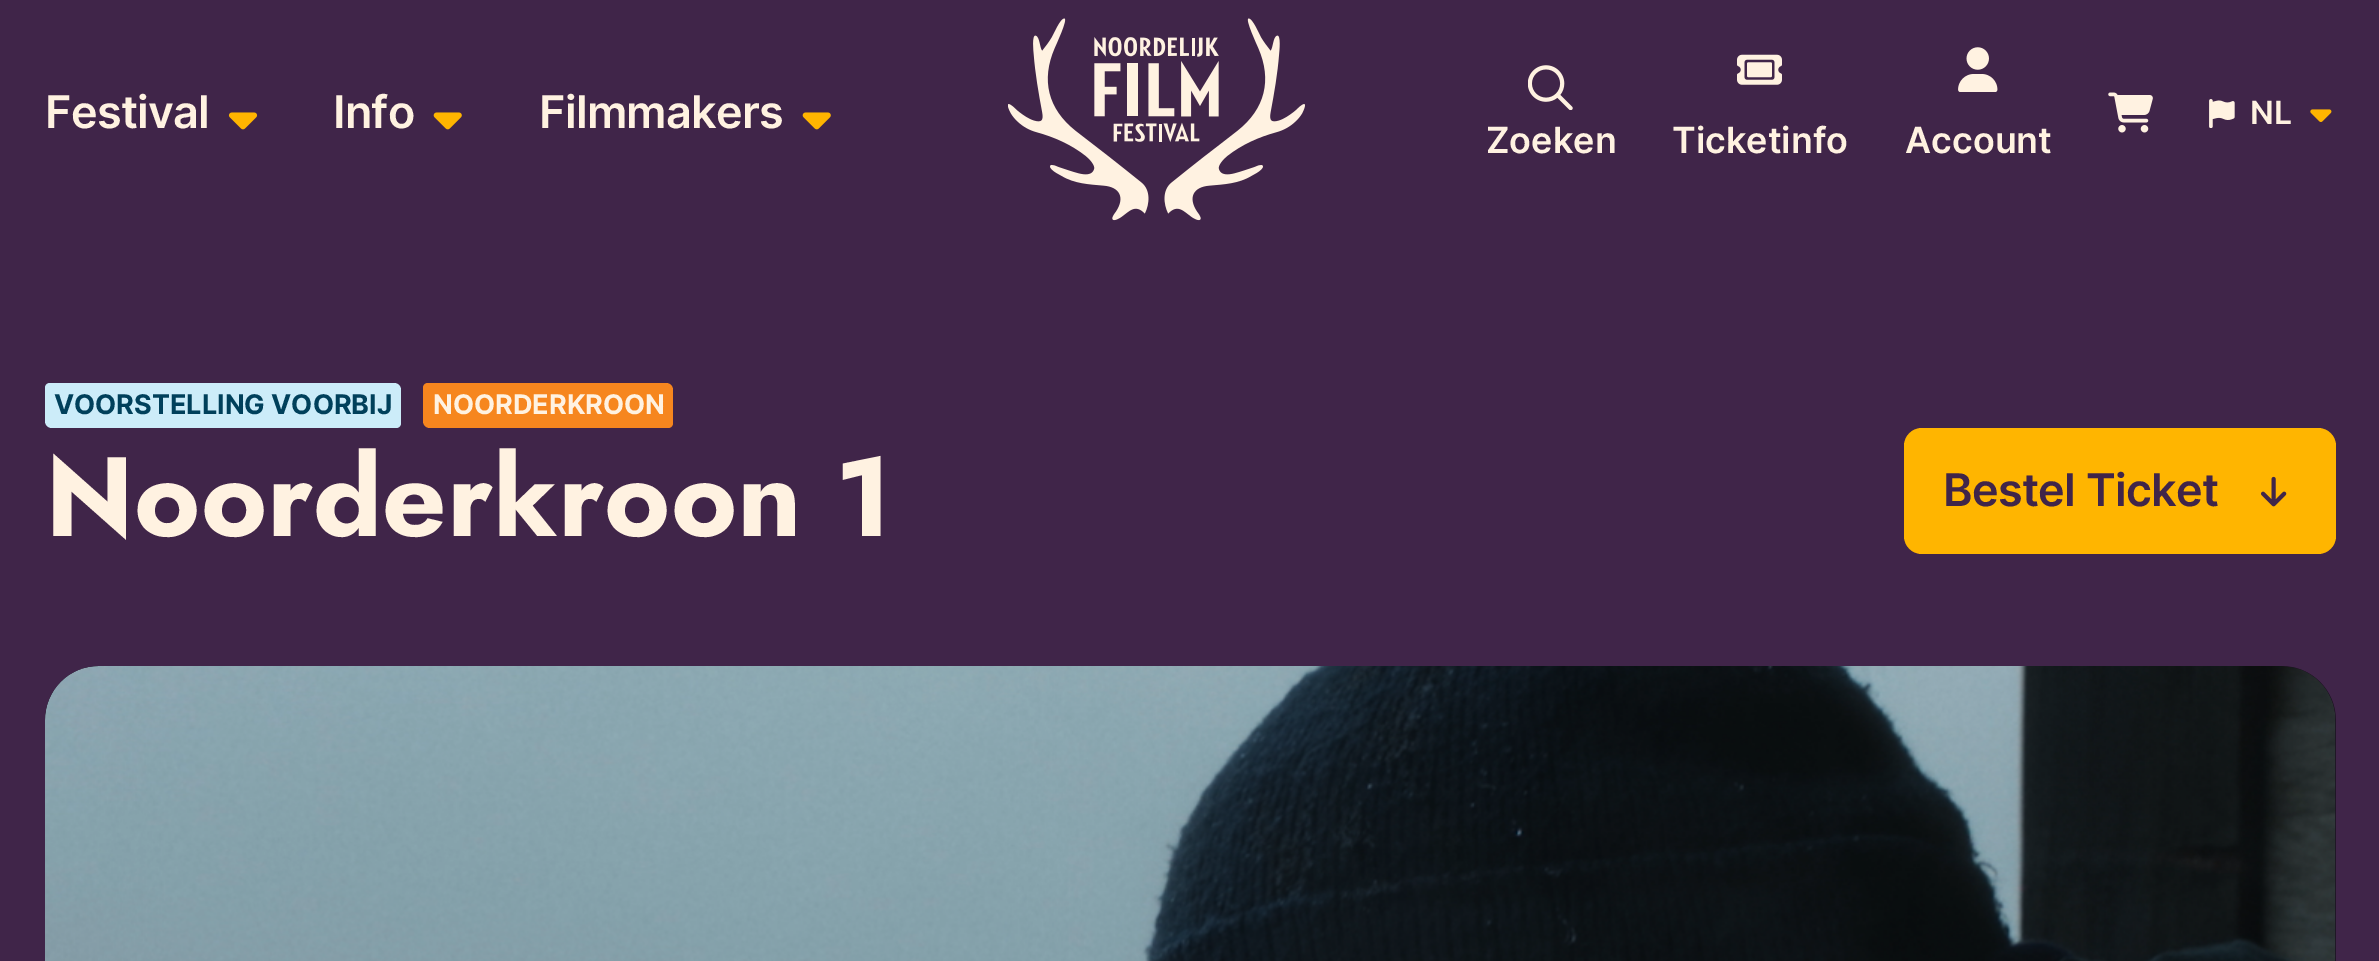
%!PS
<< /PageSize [2379 961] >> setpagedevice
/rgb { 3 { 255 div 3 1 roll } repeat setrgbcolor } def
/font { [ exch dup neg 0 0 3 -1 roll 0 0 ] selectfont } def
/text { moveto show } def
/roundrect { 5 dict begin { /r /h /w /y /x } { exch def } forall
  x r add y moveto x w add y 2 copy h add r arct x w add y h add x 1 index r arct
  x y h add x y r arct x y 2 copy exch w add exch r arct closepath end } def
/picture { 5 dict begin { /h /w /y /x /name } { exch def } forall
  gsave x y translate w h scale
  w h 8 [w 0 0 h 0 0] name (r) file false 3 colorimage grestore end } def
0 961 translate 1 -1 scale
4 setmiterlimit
64 37 73 rgb
0 0 2379 961 rectfill
(img_01.rgb) 228 112 30 18 picture
(img_02.rgb) 433 112 29 18 picture
(img_02.rgb) 802 112 29 18 picture
(img_03.rgb) 1008 18 297 203 picture
(img_04.rgb) 2108 92 45 41 picture
(img_05.rgb) 2209 99 26 29 picture
(img_06.rgb) 2310 109 22 13 picture
(img_07.rgb) 1528 65 45 45 picture
(img_08.rgb) 1737 54 45 31 picture
(img_09.rgb) 1958 47 40 45 picture
204 236 249 rgb
50 383 moveto 344 0 rlineto 4 0 7 3 7 7 rcurveto 0 33 rlineto 0 3 -2 5 -5 5 rcurveto -344 0 rlineto -4 0 -7 -3 -7 -7 rcurveto 0 -33 rlineto 0 -3 2 -5 5 -5 rcurveto closepath fill
246 134 30 rgb
428 383 moveto 238 0 rlineto 4 0 7 3 7 7 rcurveto 0 33 rlineto 0 3 -2 5 -5 5 rcurveto -238 0 rlineto -4 0 -7 -3 -7 -7 rcurveto 0 -33 rlineto 0 -3 2 -5 5 -5 rcurveto closepath fill
255 181 0 rgb
1904 428 432 126 18 roundrect fill
(img_10.rgb) 2261 476 26 31 picture
30 19 36 rgb
45 666 2291 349 54 roundrect fill
(img_11.rgb) 45 666 2291 295 picture
/Inter-SemiBold 45 font
255 242 225 rgb
45 128 moveto -0.7 0 (Festival) ashow
333 128 moveto -0.7 0 (Info) ashow
539 128 moveto -0.7 0 (Filmmakers) ashow
/Inter-SemiBold 32 font
(NL) 2250 124 text
/Inter-SemiBold 36 font
(Zoeken) 1486 153 text
(Ticketinfo) 1672 153 text
(Account) 1905 153 text
/Inter-Bold 27 font
0 64 91 rgb
(VOORSTELLING VOORBIJ) 54 414 text
255 242 225 rgb
(NOORDERKROON) 433 414 text
/Jost-Bold 112.5 font
(Noorderkroon 1) 45 536 text
/Inter-SemiBold 45 font
64 37 73 rgb
1943 506 moveto -0.7 0 (Bestel Ticket) ashow
showpage
